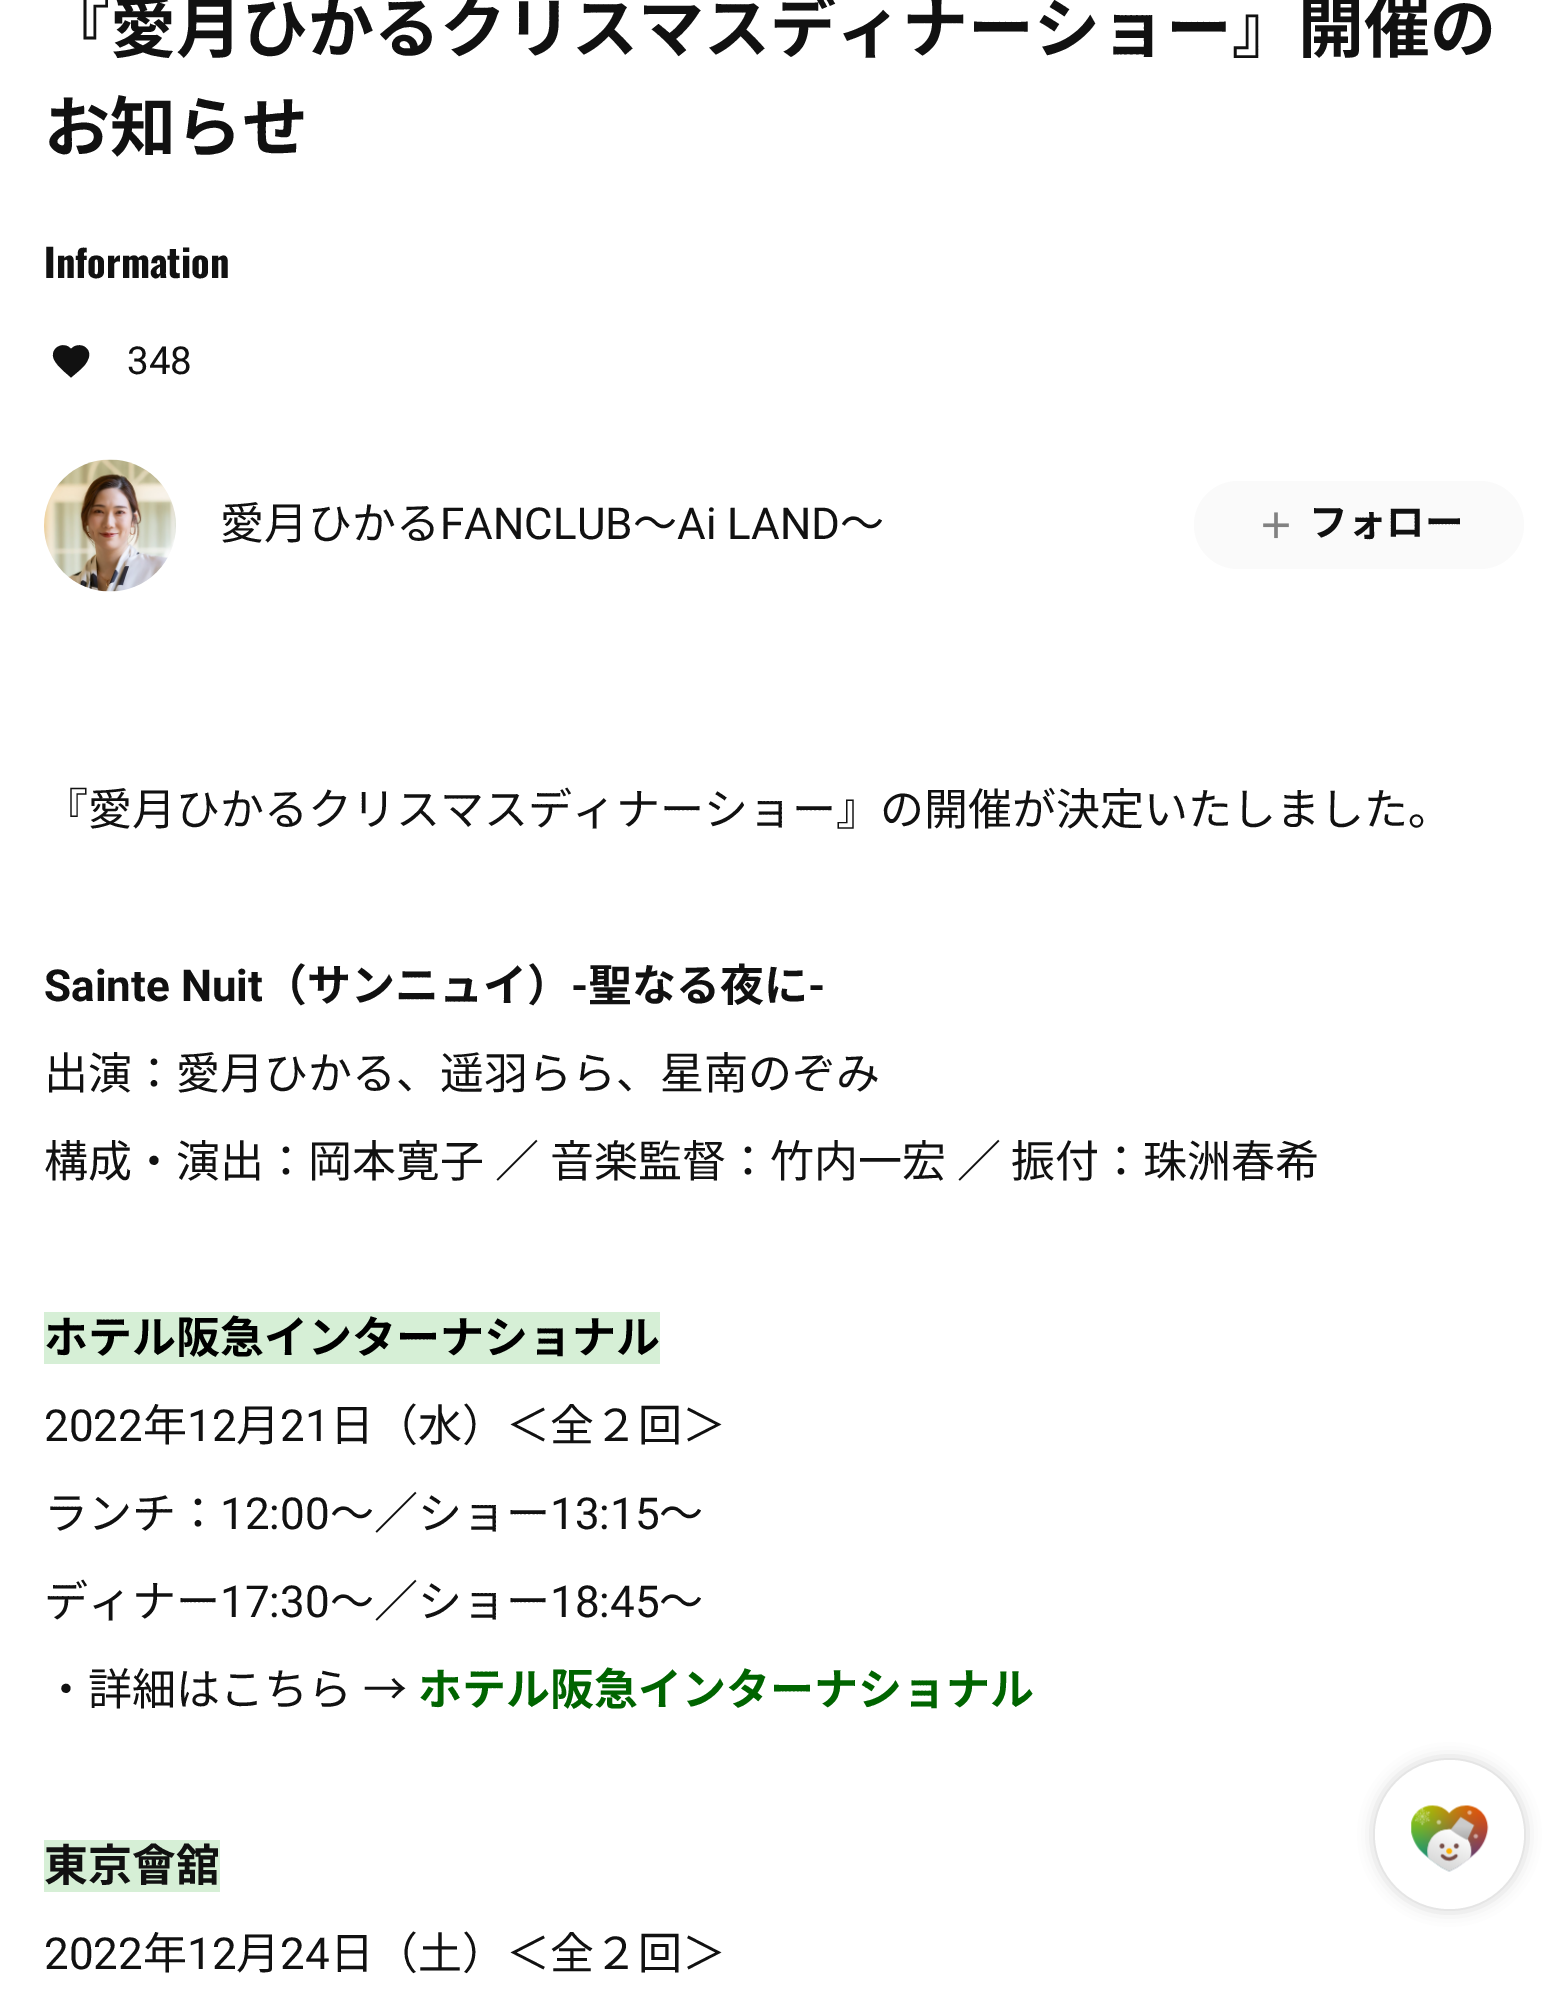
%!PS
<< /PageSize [1566 1996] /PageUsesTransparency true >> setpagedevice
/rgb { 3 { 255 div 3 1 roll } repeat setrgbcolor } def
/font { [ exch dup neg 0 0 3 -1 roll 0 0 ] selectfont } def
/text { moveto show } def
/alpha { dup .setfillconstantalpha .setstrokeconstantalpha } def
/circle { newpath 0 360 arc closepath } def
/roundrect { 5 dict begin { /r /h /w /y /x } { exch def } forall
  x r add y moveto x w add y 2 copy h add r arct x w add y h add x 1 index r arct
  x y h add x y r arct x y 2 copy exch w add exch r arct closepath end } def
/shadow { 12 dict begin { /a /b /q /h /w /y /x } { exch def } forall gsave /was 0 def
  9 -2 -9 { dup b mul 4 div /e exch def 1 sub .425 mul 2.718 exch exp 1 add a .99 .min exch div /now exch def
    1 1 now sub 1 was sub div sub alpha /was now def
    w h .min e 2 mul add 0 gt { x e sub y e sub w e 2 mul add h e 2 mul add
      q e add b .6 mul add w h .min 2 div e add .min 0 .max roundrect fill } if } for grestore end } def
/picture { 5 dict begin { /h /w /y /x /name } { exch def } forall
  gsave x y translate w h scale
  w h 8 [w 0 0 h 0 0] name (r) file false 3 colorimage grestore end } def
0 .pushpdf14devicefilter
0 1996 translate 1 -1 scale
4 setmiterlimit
255 255 255 rgb
0 0 1566 1996 rectfill
17 17 17 rgb
74 375 moveto 5 -4.5 11.5 -9 14 -15.5 rcurveto 5.5 -11 -9 -19.5 -17 -10.5 rcurveto -7.5 -9 -22 -0.5 -17 10.5 rcurveto 3.5 7 11.5 13 17 18 rcurveto closepath fill
(img_01.rgb) 44 459 132 133 picture
250 250 250 rgb
1194 481 330 88 44 roundrect fill
(img_02.rgb) 1263 512 26 27 picture
214 239 214 rgb
44 1312 616 52 rectfill
44 1840 176 52 rectfill
0 0 0 rgb
1375 1760 149 149 74.5 8 0.2 shadow
255 255 255 rgb
1449.5 1834.5 74.5 circle fill
(img_03.rgb) 1411 1805 78 67 picture
/NotoSansJP-Bold 66 font
17 17 17 rgb
(『愛月ひかるクリスマスディナーショー』開催の) 44 52 text
(お知らせ) 44 151 text
/Oswald-Bold 38.5 font
(Information) 44 278 text
/Roboto-Regular 38.5 font
(348) 127 374 text
/NotoSansJP-Regular 44 font
(愛月ひかる) 220 539 text
/Roboto-Regular 44 font
(FANCLUB) 440 539 text
/NotoSansJP-Regular 44 font
(〜) 633 539 text
/Roboto-Regular 44 font
(Ai LAND) 677 539 text
/NotoSansJP-Regular 44 font
(〜) 840 539 text
/NotoSansJP-Bold 38.5 font
(フォロー) 1309 536 text
/NotoSansJP-Regular 44 font
(『愛月ひかるクリスマスディナーショー』の開催が決定いたしました。) 44 825 text
/Roboto-Bold 44 font
(Sainte Nuit) 44 1001 text
/NotoSansJP-Bold 44 font
(（サンニュイ）) 263 1001 text
/Roboto-Bold 44 font
(-) 571 1001 text
/NotoSansJP-Bold 44 font
(聖なる夜に) 588 1001 text
/Roboto-Bold 44 font
(-) 808 1001 text
/NotoSansJP-Regular 44 font
(出演：愛月ひかる、遥羽らら、星南のぞみ) 44 1089 text
44 1177 moveto 1 0 32 (構成・演出：岡本寛子 ／ 音楽監督：竹内一宏 ／ 振付：珠洲春希) widthshow
/NotoSansJP-Bold 44 font
0 0 0 rgb
(ホテル阪急インターナショナル) 44 1353 text
/Roboto-Regular 44 font
17 17 17 rgb
(2022) 44 1441 text
/NotoSansJP-Regular 44 font
(年) 143 1441 text
/Roboto-Regular 44 font
(12) 187 1441 text
/NotoSansJP-Regular 44 font
(月) 236 1441 text
/Roboto-Regular 44 font
(21) 280 1441 text
/NotoSansJP-Regular 44 font
(日（水）＜全２回＞) 330 1441 text
(ランチ：) 44 1529 text
/Roboto-Regular 44 font
(12:00) 220 1529 text
/NotoSansJP-Regular 44 font
(〜／ショー) 330 1529 text
/Roboto-Regular 44 font
(13:15) 550 1529 text
/NotoSansJP-Regular 44 font
(〜) 659 1529 text
(ディナー) 44 1617 text
/Roboto-Regular 44 font
(17:30) 220 1617 text
/NotoSansJP-Regular 44 font
(〜／ショー) 330 1617 text
/Roboto-Regular 44 font
(18:45) 550 1617 text
/NotoSansJP-Regular 44 font
(〜) 659 1617 text
44 1705 moveto 1 0 32 (・詳細はこちら →) widthshow
/NotoSansJP-Bold 44 font
0 100 0 rgb
(ホテル阪急インターナショナル) 418 1705 text
17 17 17 rgb
(東京會舘) 44 1881 text
/Roboto-Regular 44 font
(2022) 44 1969 text
/NotoSansJP-Regular 44 font
(年) 143 1969 text
/Roboto-Regular 44 font
(12) 187 1969 text
/NotoSansJP-Regular 44 font
(月) 236 1969 text
/Roboto-Regular 44 font
(24) 280 1969 text
/NotoSansJP-Regular 44 font
(日（土）＜全２回＞) 330 1969 text
.poppdf14devicefilter showpage
